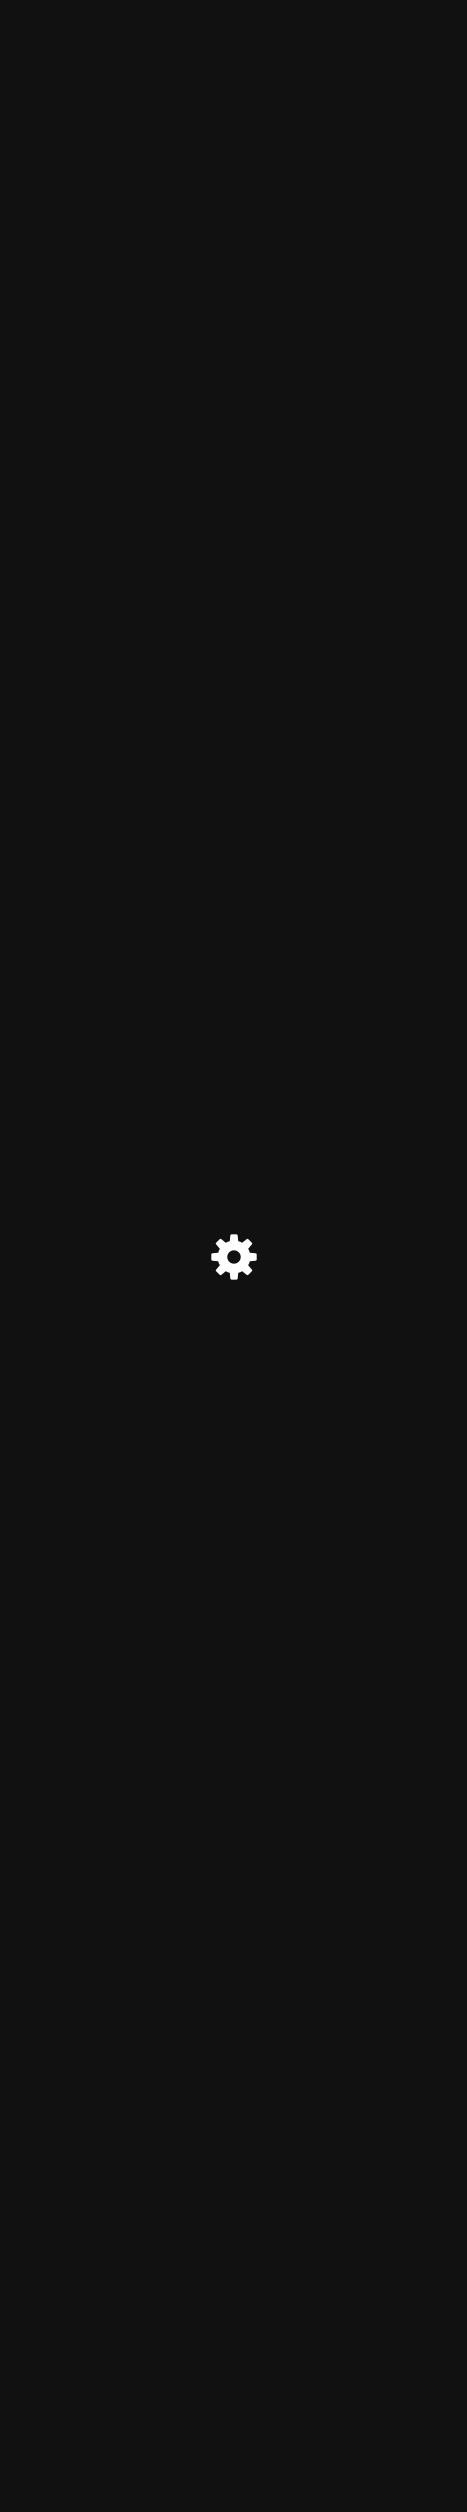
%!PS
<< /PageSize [467 2512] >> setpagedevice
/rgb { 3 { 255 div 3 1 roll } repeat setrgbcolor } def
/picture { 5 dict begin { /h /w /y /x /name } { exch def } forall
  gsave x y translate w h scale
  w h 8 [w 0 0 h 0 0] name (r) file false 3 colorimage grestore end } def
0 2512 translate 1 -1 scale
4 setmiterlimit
17 17 17 rgb
0 0 467 2512 rectfill
(img_01.rgb) 211 1234 46 46 picture
showpage
